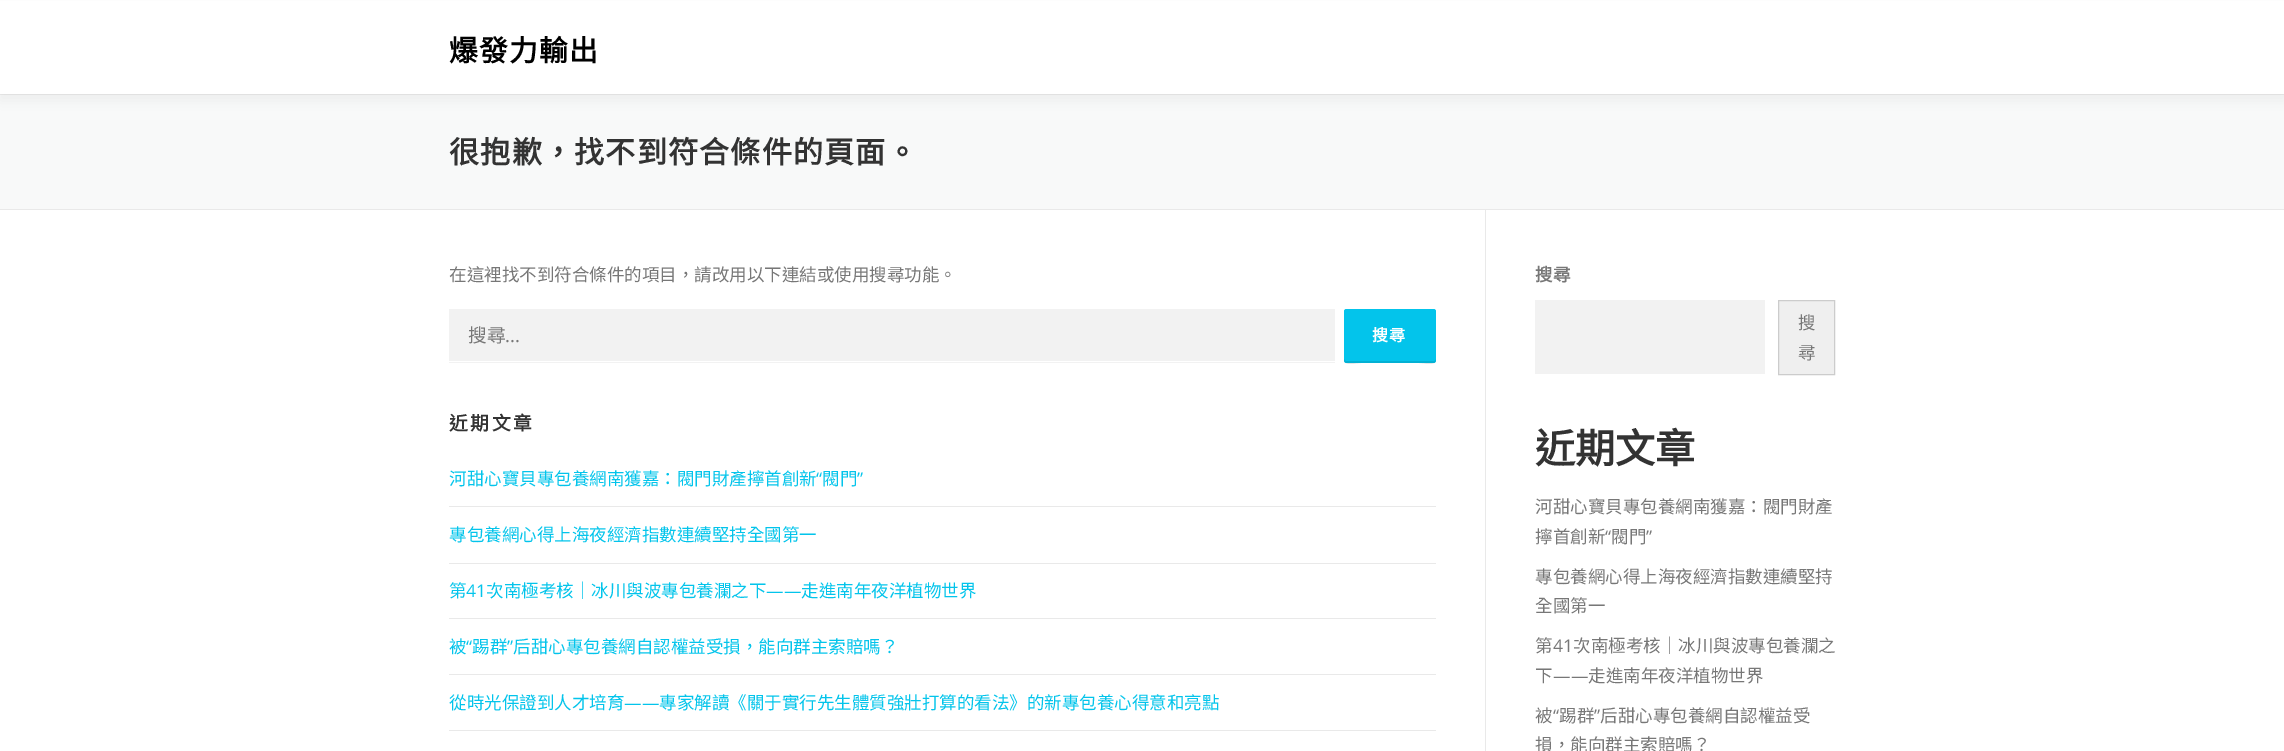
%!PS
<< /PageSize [2284 751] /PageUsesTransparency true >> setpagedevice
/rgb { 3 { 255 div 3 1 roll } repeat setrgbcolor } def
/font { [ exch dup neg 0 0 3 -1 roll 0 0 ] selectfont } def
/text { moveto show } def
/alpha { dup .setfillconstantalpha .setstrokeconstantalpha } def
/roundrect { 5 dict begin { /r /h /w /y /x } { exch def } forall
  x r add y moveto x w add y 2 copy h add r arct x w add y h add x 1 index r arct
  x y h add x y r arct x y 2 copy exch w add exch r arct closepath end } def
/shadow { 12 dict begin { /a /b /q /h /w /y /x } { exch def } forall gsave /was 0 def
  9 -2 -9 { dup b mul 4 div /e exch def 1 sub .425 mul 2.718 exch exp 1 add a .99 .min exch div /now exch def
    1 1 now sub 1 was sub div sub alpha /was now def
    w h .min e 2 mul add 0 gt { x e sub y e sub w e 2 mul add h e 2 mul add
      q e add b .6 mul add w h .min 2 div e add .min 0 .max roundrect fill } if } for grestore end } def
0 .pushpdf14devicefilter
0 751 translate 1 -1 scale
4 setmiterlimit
255 255 255 rgb
0 0 2284 751 rectfill
248 249 249 rgb
0 95 2284 114 rectfill
233 233 233 rgb
0 94 2284 1 rectfill
50 50 50 rgb
0 6 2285 94 0 6 0.06 shadow
255 255 255 rgb
0 1 2284 93 rectfill
233 233 233 rgb
0 209 2284 1 rectfill
1485 210 1 541 rectfill
242 242 242 rgb
449 309 886 54 rectfill
255 255 255 rgb
449 361 886 1 rectfill
3 196 235 rgb
1344 309 92 54 2.5 roundrect fill
0.1 alpha
0 0 0 rgb
1344 359 moveto 0 8 12 4 17 4 rcurveto 58 0 rlineto 5 0 17 4 17 -4 rcurveto 0 1 rlineto -2 1 rlineto -88 0 rlineto -1 0 -2 -1 -2 -2 rcurveto closepath fill
1 alpha
233 233 233 rgb
449 506 987 1 rectfill
449 563 987 1 rectfill
449 618 987 1 rectfill
449 674 987 1 rectfill
449 730 987 1 rectfill
242 242 242 rgb
1535 300 230 74 rectfill
239 239 239 rgb
1778.5 300.5 moveto 56 0 rlineto 0 74 rlineto -56 0 rlineto closepath gsave fill grestore
204 204 204 rgb
stroke
/NotoSansCJKTC-Bold 28.75 font
0 0 0 rgb
449 61 moveto 1.25 0 (爆發力輸出) ashow
/NotoSansCJKTC-Bold 30 font
51 51 51 rgb
449 163 moveto 1.25 0 (很抱歉，找不到符合條件的頁面。) ashow
/NotoSansCJKTC-Regular 17.5 font
119 119 119 rgb
(在這裡找不到符合條件的項目，請改用以下連結或使用搜尋功能。) 449 281 text
/NotoSansCJKTC-Regular 18.75 font
(搜尋) 468 342 text
/OpenSans-Regular 18.75 font
(...) 505 342 text
/NotoSansCJKTC-Bold 16 font
255 255 255 rgb
1372 341 moveto 1.25 0 (搜尋) ashow
/NotoSansCJKTC-Bold 18.75 font
51 51 51 rgb
449 430 moveto 2.5 0 (近期文章) ashow
/NotoSansCJKTC-Regular 17.5 font
3 196 235 rgb
(河甜心寶貝專包養網南獲嘉：閥門財產擰首創新) 449 485 text
/OpenSans-Regular 17.5 font
(“) 816 485 text
/NotoSansCJKTC-Regular 17.5 font
(閥門) 822 485 text
/OpenSans-Regular 17.5 font
(”) 857 485 text
/NotoSansCJKTC-Regular 17.5 font
(專包養網心得上海夜經濟指數連續堅持全國第一) 449 541 text
(第) 449 597 text
/OpenSans-Regular 17.5 font
(41) 466 597 text
/NotoSansCJKTC-Regular 17.5 font
(次南極考核｜冰川與波專包養瀾之下) 486 597 text
/OpenSans-Regular 17.5 font
(——) 766 597 text
/NotoSansCJKTC-Regular 17.5 font
(走進南年夜洋植物世界) 801 597 text
(被) 449 653 text
/OpenSans-Regular 17.5 font
(“) 466 653 text
/NotoSansCJKTC-Regular 17.5 font
(踢群) 472 653 text
/OpenSans-Regular 17.5 font
(”) 507 653 text
/NotoSansCJKTC-Regular 17.5 font
(后甜心專包養網自認權益受損，能向群主索賠嗎？) 513 653 text
(從時光保證到人才培育) 449 709 text
/OpenSans-Regular 17.5 font
(——) 624 709 text
/NotoSansCJKTC-Regular 17.5 font
(專家解讀《關于實行先生體質強壯打算的看法》的新專包養心得意和亮點) 659 709 text
/NotoSansCJKTC-Bold 17.5 font
119 119 119 rgb
(搜尋) 1535 281 text
/NotoSansCJKTC-Regular 17.5 font
(搜) 1798 329 text
(尋) 1798 359 text
/NotoSansCJKTC-Bold 40 font
51 51 51 rgb
(近期文章) 1535 463 text
/NotoSansCJKTC-Regular 17.5 font
119 119 119 rgb
(河甜心寶貝專包養網南獲嘉：閥門財產) 1535 513 text
(擰首創新) 1535 543 text
/OpenSans-Regular 17.5 font
(“) 1605 543 text
/NotoSansCJKTC-Regular 17.5 font
(閥門) 1611 543 text
/OpenSans-Regular 17.5 font
(”) 1646 543 text
/NotoSansCJKTC-Regular 17.5 font
(專包養網心得上海夜經濟指數連續堅持) 1535 583 text
(全國第一) 1535 612 text
(第) 1535 652 text
/OpenSans-Regular 17.5 font
(41) 1553 652 text
/NotoSansCJKTC-Regular 17.5 font
(次南極考核｜冰川與波專包養瀾之) 1573 652 text
(下) 1535 682 text
/OpenSans-Regular 17.5 font
(——) 1553 682 text
/NotoSansCJKTC-Regular 17.5 font
(走進南年夜洋植物世界) 1588 682 text
(被) 1535 722 text
/OpenSans-Regular 17.5 font
(“) 1553 722 text
/NotoSansCJKTC-Regular 17.5 font
(踢群) 1559 722 text
/OpenSans-Regular 17.5 font
(”) 1594 722 text
/NotoSansCJKTC-Regular 17.5 font
(后甜心專包養網自認權益受) 1600 722 text
(損，能向群主索賠嗎？) 1535 751 text
.poppdf14devicefilter showpage
